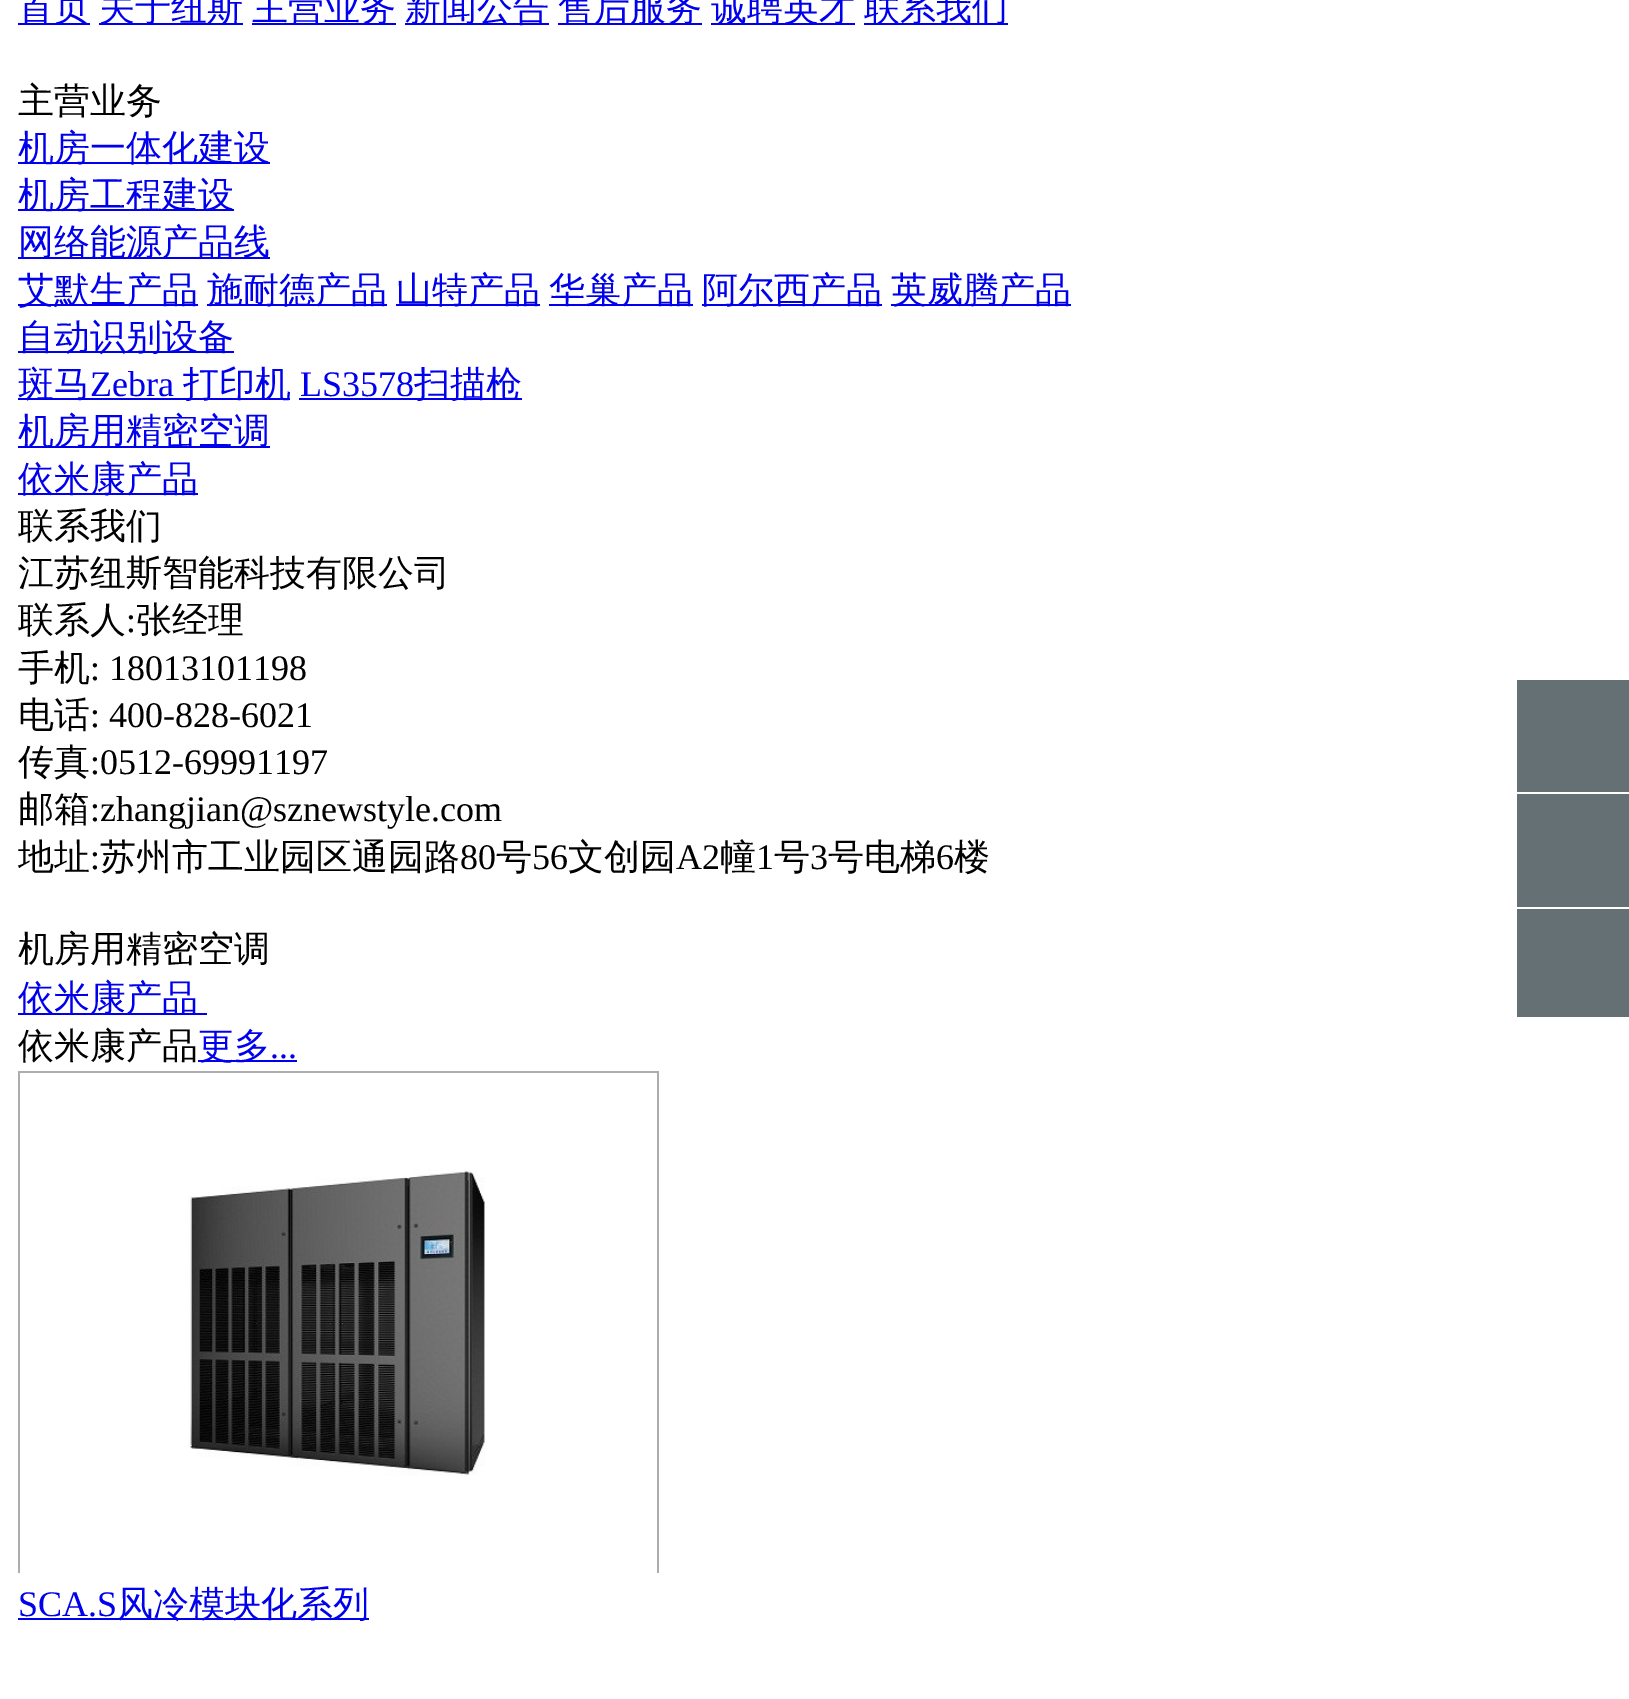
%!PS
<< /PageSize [1629 1699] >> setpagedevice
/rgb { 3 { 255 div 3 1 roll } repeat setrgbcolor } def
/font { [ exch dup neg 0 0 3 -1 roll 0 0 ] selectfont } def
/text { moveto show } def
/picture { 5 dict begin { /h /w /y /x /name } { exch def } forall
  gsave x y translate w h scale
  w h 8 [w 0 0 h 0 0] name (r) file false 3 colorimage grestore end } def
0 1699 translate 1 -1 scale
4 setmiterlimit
255 255 255 rgb
0 0 1629 1699 rectfill
0 0 238 rgb
18 23 72 2 rectfill
99 23 144 2 rectfill
252 23 144 2 rectfill
405 23 144 2 rectfill
558 23 144 2 rectfill
711 23 144 2 rectfill
864 23 144 2 rectfill
18 162 252 2 rectfill
18 209 216 2 rectfill
18 257 252 2 rectfill
18 304 180 2 rectfill
207 304 180 2 rectfill
396 304 144 2 rectfill
549 304 144 2 rectfill
702 304 180 2 rectfill
891 304 180 2 rectfill
18 351 216 2 rectfill
18 398 272 2 rectfill
299 398 223 2 rectfill
18 446 252 2 rectfill
18 493 180 2 rectfill
18 1013 189 2 rectfill
198 1060 99 2 rectfill
173 173 173 rgb
18 1071 641 2 rectfill
18 1071 2 502 rectfill
(img_01.rgb) 188 1170 297 306 picture
657 1071 2 502 rectfill
0 0 238 rgb
18 1618 351 2 rectfill
101 112 117 rgb
1517 680 112 337 rectfill
255 255 255 rgb
1517 792 112 2 rectfill
1517 907 112 2 rectfill
/WenQuanYiZenHei-Medium 36 font
0 0 238 rgb
(首页) 18 20 text
(关于纽斯) 99 20 text
(主营业务) 252 20 text
(新闻公告) 405 20 text
(售后服务) 558 20 text
(诚聘英才) 711 20 text
(联系我们) 864 20 text
0 0 0 rgb
(主营业务) 18 113 text
0 0 238 rgb
(机房一体化建设) 18 160 text
(机房工程建设) 18 207 text
(网络能源产品线) 18 254 text
(艾默生产品) 18 302 text
(施耐德产品) 207 302 text
(山特产品) 396 302 text
(华巢产品) 549 302 text
(阿尔西产品) 702 302 text
(英威腾产品) 891 302 text
(自动识别设备) 18 349 text
(斑马) 18 396 text
/LiberationSerif-Regular 36 font
(Zebra) 90 396 text
/WenQuanYiZenHei-Medium 36 font
(打印机) 183 396 text
/LiberationSerif-Regular 36 font
(LS3578) 300 396 text
/WenQuanYiZenHei-Medium 36 font
(扫描枪) 414 396 text
(机房用精密空调) 18 443 text
(依米康产品) 18 491 text
0 0 0 rgb
(联系我们) 18 538 text
(江苏纽斯智能科技有限公司) 18 585 text
(联系人) 18 632 text
/LiberationSerif-Regular 36 font
(:) 126 632 text
/WenQuanYiZenHei-Medium 36 font
(张经理) 136 632 text
(手机) 18 680 text
/LiberationSerif-Regular 36 font
(: 18013101198) 90 680 text
/WenQuanYiZenHei-Medium 36 font
(电话) 18 727 text
/LiberationSerif-Regular 36 font
(: 400-828-6021) 90 727 text
/WenQuanYiZenHei-Medium 36 font
(传真) 18 774 text
/LiberationSerif-Regular 36 font
(:0512-69991197) 90 774 text
/WenQuanYiZenHei-Medium 36 font
(邮箱) 18 821 text
/LiberationSerif-Regular 36 font
(:zhangjian@sznewstyle.com) 90 821 text
/WenQuanYiZenHei-Medium 36 font
(地址) 18 869 text
/LiberationSerif-Regular 36 font
(:) 90 869 text
/WenQuanYiZenHei-Medium 36 font
(苏州市工业园区通园路) 100 869 text
/LiberationSerif-Regular 36 font
(80) 460 869 text
/WenQuanYiZenHei-Medium 36 font
(号) 496 869 text
/LiberationSerif-Regular 36 font
(56) 532 869 text
/WenQuanYiZenHei-Medium 36 font
(文创园) 568 869 text
/LiberationSerif-Regular 36 font
(A2) 676 869 text
/WenQuanYiZenHei-Medium 36 font
(幢) 720 869 text
/LiberationSerif-Regular 36 font
(1) 756 869 text
/WenQuanYiZenHei-Medium 36 font
(号) 774 869 text
/LiberationSerif-Regular 36 font
(3) 810 869 text
/WenQuanYiZenHei-Medium 36 font
(号电梯) 828 869 text
/LiberationSerif-Regular 36 font
(6) 936 869 text
/WenQuanYiZenHei-Medium 36 font
(楼) 954 869 text
(机房用精密空调) 18 961 text
0 0 238 rgb
(依米康产品) 18 1010 text
0 0 0 rgb
(依米康产品) 18 1058 text
0 0 238 rgb
(更多) 198 1058 text
/LiberationSerif-Regular 36 font
(...) 270 1058 text
(SCA.S) 18 1616 text
/WenQuanYiZenHei-Medium 36 font
(风冷模块化系列) 117 1616 text
showpage
